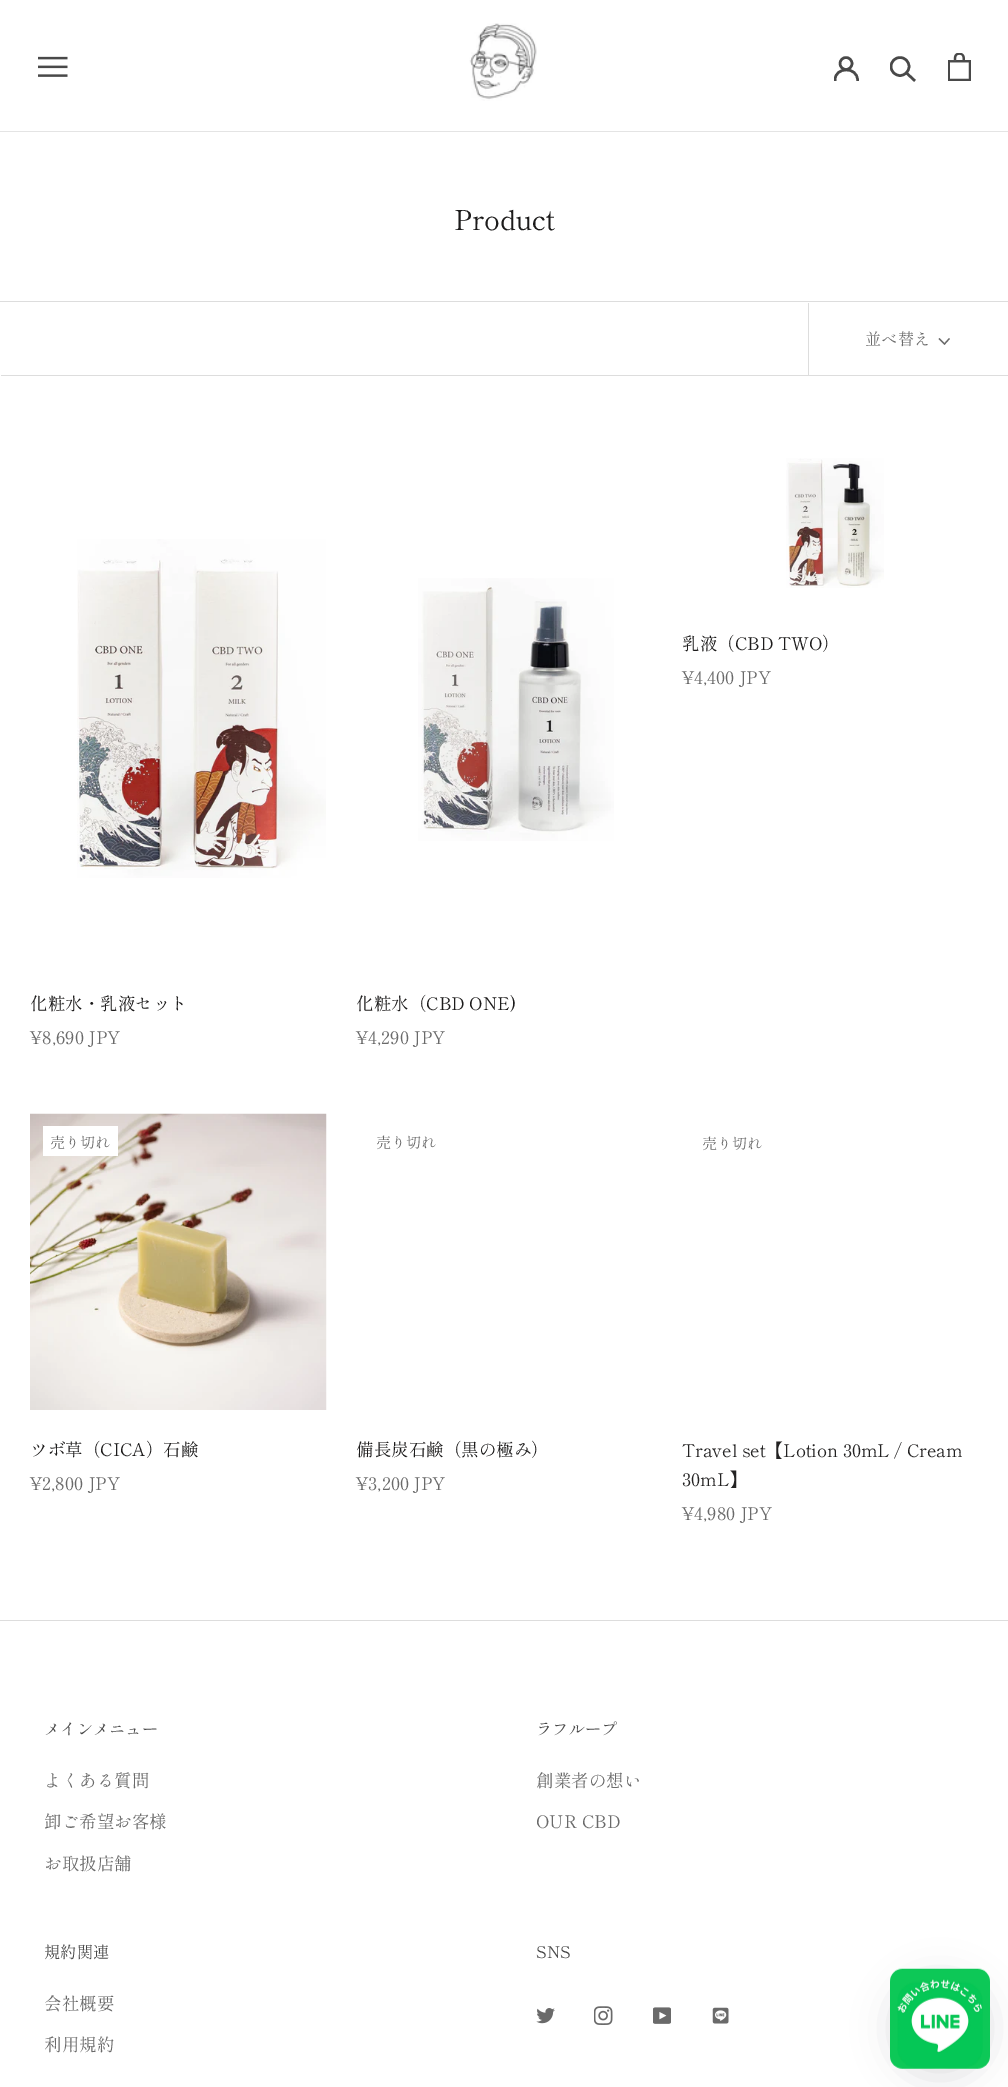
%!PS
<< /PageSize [1008 2087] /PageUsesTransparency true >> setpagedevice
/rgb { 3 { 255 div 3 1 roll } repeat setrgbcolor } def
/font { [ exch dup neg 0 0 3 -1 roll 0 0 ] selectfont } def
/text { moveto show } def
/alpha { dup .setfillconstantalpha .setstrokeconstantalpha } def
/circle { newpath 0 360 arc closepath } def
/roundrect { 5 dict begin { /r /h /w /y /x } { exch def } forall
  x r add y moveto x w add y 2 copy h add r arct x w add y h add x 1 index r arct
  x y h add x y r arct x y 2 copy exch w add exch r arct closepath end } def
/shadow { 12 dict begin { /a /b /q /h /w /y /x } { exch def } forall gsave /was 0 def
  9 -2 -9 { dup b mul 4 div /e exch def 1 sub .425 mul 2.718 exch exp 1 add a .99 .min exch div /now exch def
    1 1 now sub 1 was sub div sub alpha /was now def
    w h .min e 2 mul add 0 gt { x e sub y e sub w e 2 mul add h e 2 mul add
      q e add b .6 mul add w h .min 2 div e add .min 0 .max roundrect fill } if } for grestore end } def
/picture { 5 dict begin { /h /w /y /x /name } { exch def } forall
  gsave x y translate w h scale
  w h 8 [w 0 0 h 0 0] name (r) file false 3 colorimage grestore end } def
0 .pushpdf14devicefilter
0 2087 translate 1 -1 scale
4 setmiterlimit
255 255 255 rgb
0 0 1008 2087 rectfill
228 228 228 rgb
0 131 1008 1 rectfill
(img_01.rgb) 38 56 30 21 picture
(img_02.rgb) 469 23 68 78 picture
gsave
834 56 25 25 rectclip
73 73 73 rgb
2.5 setlinewidth
2 setlinecap
835 80 moveto 0 -13.5 22.5 -13.5 22.5 0 rcurveto stroke
grestore
73 73 73 rgb
2.5 setlinewidth
846 63.5 6 circle stroke
2 setlinecap
914 80 moveto -7.5 -7 rlineto stroke
gsave
890 56 26 27 rectclip
0 setlinecap
900 66.5 9 circle stroke
grestore
(img_03.rgb) 948 53 23 28 picture
221 221 221 rgb
-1 301 moveto 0 73 rlineto 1 0 rlineto 0 -72 rlineto 1008 0 rlineto 0 -1 rlineto closepath fill
1 375 moveto 0 1 rlineto 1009 0 rlineto 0 -72 rlineto -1 0 rlineto 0 71 rlineto closepath fill
808 303 1 72 rectfill
106 106 106 rgb
1.2 setlinewidth
949 339 moveto -4.5 5 rlineto -5 -5 rlineto stroke
(img_04.rgb) 786 458 98 130 picture
(img_05.rgb) 77 539 249 339 picture
(img_06.rgb) 418 578 196 263 picture
(img_07.rgb) 30 1113 297 297 picture
255 255 255 rgb
43 1126 75 30 rectfill
221 221 221 rgb
0 1620 1008 1 rectfill
(img_08.rgb) 536 2008 19 16 picture
(img_09.rgb) 594 2006 19 19 picture
(img_10.rgb) 653 2007 18 17 picture
(img_11.rgb) 712 2007 17 17 picture
100 100 111 rgb
890 1978 100 100 50 18 0.2 shadow
(img_12.rgb) 890 1968 100 101 picture
/ShipporiMincho-Regular 27.5 font
28 27 27 rgb
(Product) 454 230 text
/ShipporiMincho-Regular 16.25 font
106 106 106 rgb
(並べ替え) 865 345 text
/ShipporiMincho-Regular 17.5 font
28 27 27 rgb
(乳液（CBD TWO）) 682 650 text
106 106 106 rgb
(¥4,400 JPY) 682 684 text
28 27 27 rgb
(化粧水・乳液セット) 30 1010 text
106 106 106 rgb
(¥8,690 JPY) 30 1044 text
28 27 27 rgb
(化粧水（CBD ONE\)) 356 1010 text
106 106 106 rgb
(¥4,290 JPY) 356 1044 text
/ShipporiMincho-Regular 15 font
(売り切れ) 50 1148 text
/ShipporiMincho-Regular 17.5 font
28 27 27 rgb
(ツボ草（CICA）石鹸) 30 1456 text
106 106 106 rgb
(¥2,800 JPY) 30 1490 text
/ShipporiMincho-Regular 15 font
(売り切れ) 376 1148 text
/ShipporiMincho-Regular 17.5 font
28 27 27 rgb
(備長炭石鹸（黒の極み）) 356 1456 text
106 106 106 rgb
(¥3,200 JPY) 356 1490 text
/ShipporiMincho-Regular 15 font
(売り切れ) 702 1149 text
/ShipporiMincho-Regular 17.5 font
35 34 34 rgb
(Travel set【Lotion 30mL / Cream) 682 1457 text
(30mL】) 682 1486 text
106 106 106 rgb
(¥4,980 JPY) 682 1520 text
/ShipporiMincho-Regular 16.25 font
73 73 73 rgb
(メインメニュー) 44 1735 text
/ShipporiMincho-Regular 17.5 font
106 106 106 rgb
(よくある質問) 44 1787 text
255 255 255 rgb
44 1776 7 8 3.5 roundrect fill
106 106 106 rgb
(卸ご希望お客様) 44 1828 text
(お取扱店舗) 44 1870 text
/ShipporiMincho-Regular 16.25 font
73 73 73 rgb
(ラフループ) 536 1735 text
/ShipporiMincho-Regular 17.5 font
106 106 106 rgb
(創業者の想い) 536 1787 text
(OUR CBD) 536 1828 text
/ShipporiMincho-Regular 16.25 font
73 73 73 rgb
(規約関連) 44 1958 text
/ShipporiMincho-Regular 17.5 font
106 106 106 rgb
(会社概要) 44 2010 text
(利用規約) 44 2051 text
/ShipporiMincho-Regular 16.25 font
73 73 73 rgb
(SNS) 536 1958 text
.poppdf14devicefilter showpage
